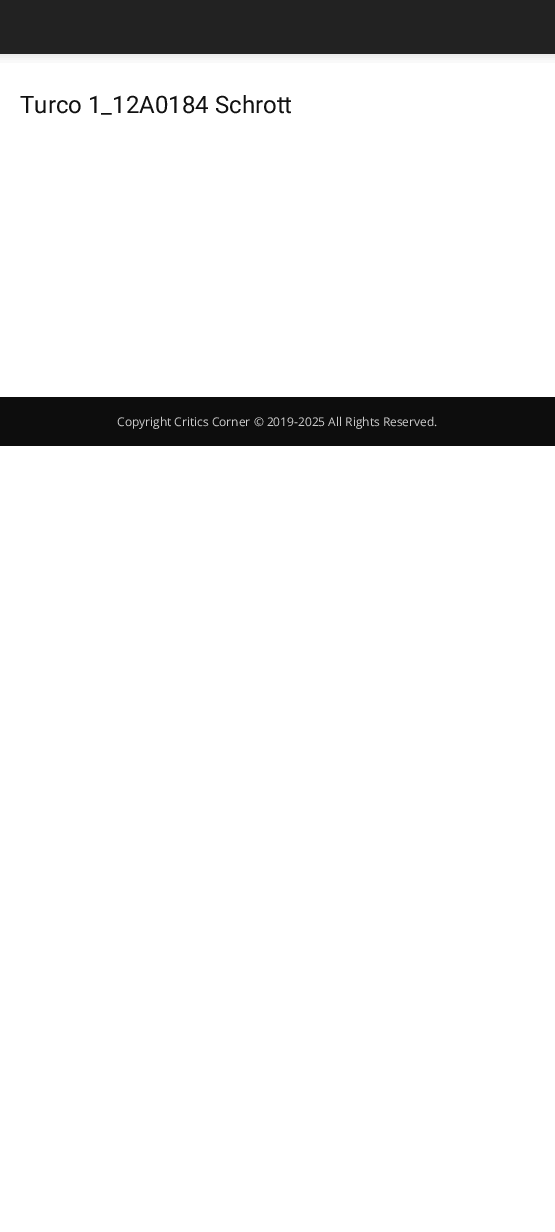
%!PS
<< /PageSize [555 1232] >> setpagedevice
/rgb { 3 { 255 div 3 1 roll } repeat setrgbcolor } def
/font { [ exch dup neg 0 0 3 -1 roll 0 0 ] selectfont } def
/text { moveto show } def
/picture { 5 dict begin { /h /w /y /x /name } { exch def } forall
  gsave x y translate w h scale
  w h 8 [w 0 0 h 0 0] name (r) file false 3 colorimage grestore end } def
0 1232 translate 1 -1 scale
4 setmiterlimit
255 255 255 rgb
0 0 555 1232 rectfill
34 34 34 rgb
0 0 555 54 rectfill
(img_01.rgb) 0 54 555 9 picture
13 13 13 rgb
0 397 555 49 rectfill
/Roboto-Regular 24 font
17 17 17 rgb
(Turco 1_12A0184 Schrott) 20 113 text
/OpenSans-Regular 12 font
204 204 204 rgb
(Copyright Critics Corner © 2019-2025 All Rights Reserved.) 117 426 text
showpage
